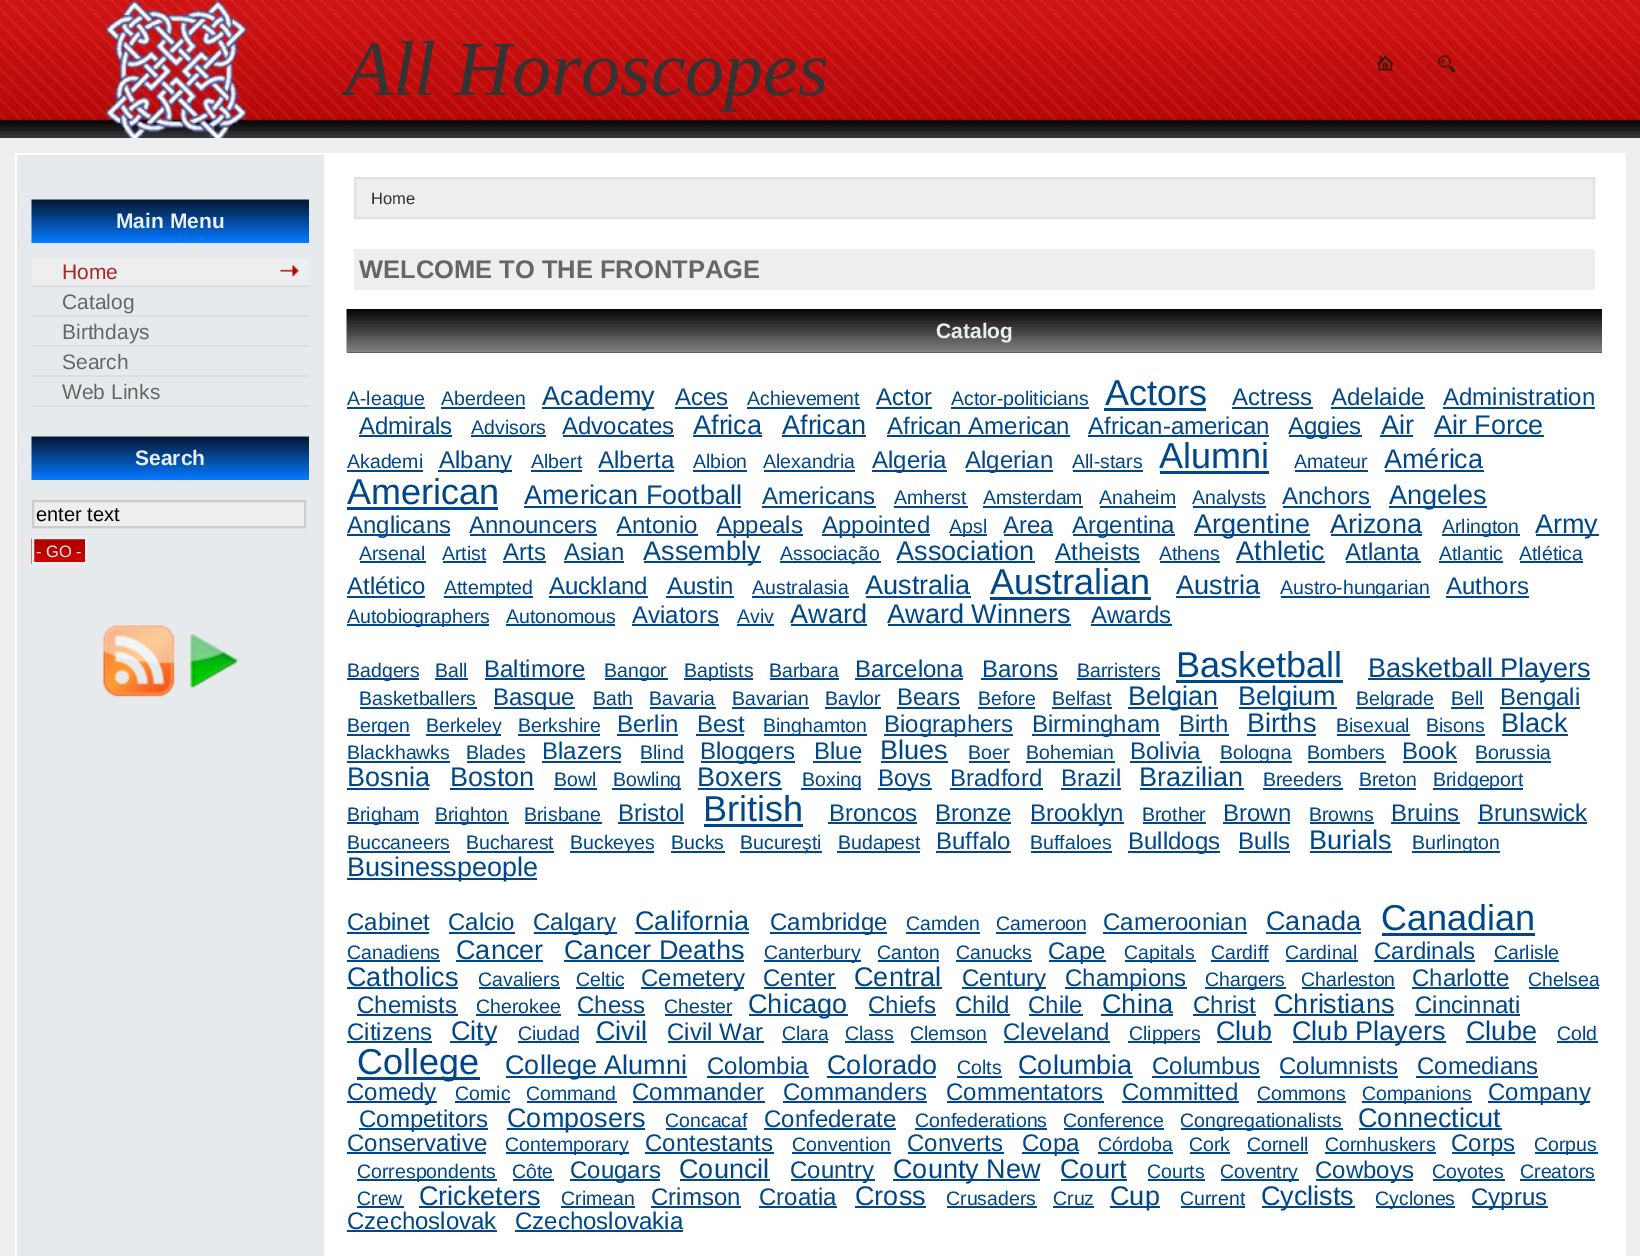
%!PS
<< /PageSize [1640 1256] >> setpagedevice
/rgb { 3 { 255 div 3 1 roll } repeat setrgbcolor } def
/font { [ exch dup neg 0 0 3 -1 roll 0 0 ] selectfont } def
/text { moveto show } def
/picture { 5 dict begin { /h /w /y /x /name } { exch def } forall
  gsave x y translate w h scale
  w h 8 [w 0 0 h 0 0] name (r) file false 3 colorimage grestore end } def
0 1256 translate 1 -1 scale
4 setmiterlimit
236 238 239 rgb
0 0 1640 1256 rectfill
(img_01.rgb) 0 0 1640 138 picture
(img_02.rgb) 106 1 141 137 picture
(img_03.rgb) 1377 55 78 17 picture
255 255 255 rgb
15 153 1611 1103 rectfill
231 234 236 rgb
17 155 307 1101 rectfill
(img_04.rgb) 31 199 278 44 picture
236 238 239 rgb
32 258 277 27 rectfill
(img_05.rgb) 280 265 19 12 picture
220 223 225 rgb
32 285 277 2 rectfill
32 315 277 2 rectfill
32 345 277 2 rectfill
32 375 277 2 rectfill
32 405 277 2 rectfill
(img_04.rgb) 31 436 278 44 picture
236 238 239 rgb
33 501 moveto 272 0 rlineto 0 26 rlineto -272 0 rlineto closepath gsave fill grestore
204 204 204 rgb
2 setlinewidth
stroke
(img_06.rgb) 31 538 54 26 picture
237 241 243 rgb
33 538 53 25 rectstroke
(img_07.rgb) 103 625 135 72 picture
236 238 239 rgb
355 178 moveto 1239 0 rlineto 0 40 rlineto -1239 0 rlineto closepath gsave fill grestore
221 225 227 rgb
stroke
236 238 239 rgb
354 249 1241 41 rectfill
65 65 65 rgb
347 352 1255 1 rectfill
(img_08.rgb) 346 309 1256 44 picture
0 71 138 rgb
347 407 78 2 rectfill
441 407 84 2 rectfill
542 407 112 2 rectfill
675 407 53 2 rectfill
747 407 113 2 rectfill
876 407 56 2 rectfill
951 407 138 2 rectfill
1104 408 102 3 rectfill
1232 407 81 2 rectfill
1331 407 94 2 rectfill
1443 407 152 2 rectfill
359 435 93 2 rectfill
471 435 75 2 rectfill
563 435 111 2 rectfill
693 435 69 2 rectfill
782 435 84 2 rectfill
887 435 183 2 rectfill
1088 435 181 2 rectfill
1289 435 73 2 rectfill
1380 435 33 2 rectfill
1434 435 110 2 rectfill
347 470 76 2 rectfill
438 470 74 2 rectfill
531 470 51 2 rectfill
599 470 75 2 rectfill
693 470 54 2 rectfill
764 470 91 2 rectfill
872 470 75 2 rectfill
966 470 87 2 rectfill
1073 470 70 2 rectfill
1160 471 109 3 rectfill
1295 470 73 2 rectfill
1385 470 99 2 rectfill
347 507 151 3 rectfill
524 506 217 2 rectfill
762 506 114 2 rectfill
894 506 74 2 rectfill
983 506 100 2 rectfill
1100 506 76 2 rectfill
1193 506 73 2 rectfill
1283 506 88 2 rectfill
1389 506 98 2 rectfill
347 534 103 2 rectfill
470 534 127 2 rectfill
617 534 81 2 rectfill
717 534 86 2 rectfill
822 534 108 2 rectfill
950 534 37 2 rectfill
1004 534 49 2 rectfill
1073 534 102 2 rectfill
1194 534 116 2 rectfill
1331 534 91 2 rectfill
1442 534 78 2 rectfill
1536 534 63 2 rectfill
360 561 66 2 rectfill
443 561 43 2 rectfill
503 561 43 2 rectfill
564 561 60 2 rectfill
644 561 117 2 rectfill
780 561 101 2 rectfill
897 561 138 2 rectfill
1055 561 85 2 rectfill
1160 561 60 2 rectfill
1236 561 89 2 rectfill
1346 561 75 2 rectfill
1439 561 64 2 rectfill
1520 561 63 2 rectfill
347 596 78 2 rectfill
444 596 89 2 rectfill
549 596 99 2 rectfill
666 596 68 2 rectfill
752 596 97 2 rectfill
866 596 105 2 rectfill
990 597 161 3 rectfill
1176 596 84 2 rectfill
1281 596 149 2 rectfill
1446 596 83 2 rectfill
347 624 142 2 rectfill
506 624 109 2 rectfill
632 624 87 2 rectfill
737 624 37 2 rectfill
791 624 76 2 rectfill
888 624 183 2 rectfill
1091 624 81 2 rectfill
347 678 72 2 rectfill
435 678 33 2 rectfill
485 678 100 2 rectfill
605 678 63 2 rectfill
684 678 69 2 rectfill
770 678 69 2 rectfill
855 678 108 2 rectfill
981 678 77 2 rectfill
1077 678 83 2 rectfill
1176 680 167 3 rectfill
1368 678 222 2 rectfill
360 707 117 2 rectfill
494 707 81 2 rectfill
593 707 40 2 rectfill
650 707 66 2 rectfill
732 707 77 2 rectfill
825 707 56 2 rectfill
897 707 63 2 rectfill
978 707 57 2 rectfill
1052 707 60 2 rectfill
1128 707 90 2 rectfill
1239 707 98 2 rectfill
1356 707 78 2 rectfill
1451 707 33 2 rectfill
1500 707 80 2 rectfill
347 734 63 2 rectfill
426 734 75 2 rectfill
518 734 82 2 rectfill
617 734 61 2 rectfill
696 734 48 2 rectfill
764 734 103 2 rectfill
884 734 129 2 rectfill
1032 734 128 2 rectfill
1179 734 50 2 rectfill
1247 734 69 2 rectfill
1337 734 73 2 rectfill
1427 734 58 2 rectfill
1502 734 66 2 rectfill
347 761 103 2 rectfill
467 761 58 2 rectfill
542 761 79 2 rectfill
641 761 43 2 rectfill
701 761 94 2 rectfill
813 761 48 2 rectfill
881 761 67 2 rectfill
969 761 41 2 rectfill
1026 761 89 2 rectfill
1130 761 72 2 rectfill
1220 761 72 2 rectfill
1308 761 78 2 rectfill
1403 761 54 2 rectfill
1476 761 75 2 rectfill
347 788 82 2 rectfill
450 788 84 2 rectfill
554 788 43 2 rectfill
612 788 69 2 rectfill
698 788 84 2 rectfill
801 788 60 2 rectfill
878 788 54 2 rectfill
950 788 93 2 rectfill
1061 788 60 2 rectfill
1140 788 104 2 rectfill
1263 788 80 2 rectfill
1359 788 57 2 rectfill
1433 788 90 2 rectfill
347 822 72 2 rectfill
435 822 74 2 rectfill
525 822 77 2 rectfill
618 822 66 2 rectfill
704 824 99 3 rectfill
828 822 89 2 rectfill
936 822 75 2 rectfill
1031 822 93 2 rectfill
1143 822 63 2 rectfill
1223 822 67 2 rectfill
1310 822 64 2 rectfill
1391 822 69 2 rectfill
1478 822 109 2 rectfill
347 851 103 2 rectfill
467 851 87 2 rectfill
570 851 84 2 rectfill
671 851 54 2 rectfill
740 851 82 2 rectfill
837 851 83 2 rectfill
936 851 75 2 rectfill
1031 851 81 2 rectfill
1128 851 92 2 rectfill
1239 851 51 2 rectfill
1310 851 82 2 rectfill
1412 851 88 2 rectfill
347 878 190 2 rectfill
347 932 82 2 rectfill
449 932 66 2 rectfill
534 932 83 2 rectfill
635 932 114 2 rectfill
770 932 117 2 rectfill
906 932 74 2 rectfill
996 932 90 2 rectfill
1103 932 144 2 rectfill
1266 932 95 2 rectfill
1382 933 153 3 rectfill
347 960 93 2 rectfill
456 960 87 2 rectfill
564 960 180 2 rectfill
764 960 97 2 rectfill
878 960 61 2 rectfill
956 960 76 2 rectfill
1049 960 57 2 rectfill
1125 960 71 2 rectfill
1211 960 58 2 rectfill
1286 960 72 2 rectfill
1374 960 101 2 rectfill
1494 960 65 2 rectfill
347 987 111 2 rectfill
479 987 81 2 rectfill
576 987 48 2 rectfill
641 987 103 2 rectfill
764 987 72 2 rectfill
855 987 87 2 rectfill
962 987 84 2 rectfill
1065 987 122 2 rectfill
1205 987 81 2 rectfill
1302 987 93 2 rectfill
1412 987 97 2 rectfill
1529 987 70 2 rectfill
357 1014 101 2 rectfill
476 1014 85 2 rectfill
578 1014 67 2 rectfill
665 1014 67 2 rectfill
749 1014 99 2 rectfill
869 1014 67 2 rectfill
956 1014 54 2 rectfill
1029 1014 54 2 rectfill
1101 1014 72 2 rectfill
1193 1014 63 2 rectfill
1274 1014 120 2 rectfill
1415 1014 105 2 rectfill
347 1041 85 2 rectfill
450 1041 47 2 rectfill
518 1041 61 2 rectfill
596 1041 51 2 rectfill
668 1041 96 2 rectfill
782 1041 46 2 rectfill
845 1041 49 2 rectfill
911 1041 76 2 rectfill
1004 1041 106 2 rectfill
1128 1041 72 2 rectfill
1217 1041 55 2 rectfill
1293 1041 153 2 rectfill
1466 1041 70 2 rectfill
1557 1041 41 2 rectfill
357 1077 123 3 rectfill
506 1076 181 2 rectfill
707 1076 102 2 rectfill
827 1076 109 2 rectfill
957 1076 45 2 rectfill
1019 1076 114 2 rectfill
1152 1076 108 2 rectfill
1280 1076 118 2 rectfill
1416 1076 122 2 rectfill
347 1101 90 2 rectfill
455 1101 55 2 rectfill
527 1101 90 2 rectfill
633 1101 132 2 rectfill
783 1101 144 2 rectfill
947 1101 157 2 rectfill
1122 1101 117 2 rectfill
1257 1101 89 2 rectfill
1362 1101 110 2 rectfill
1488 1101 102 2 rectfill
359 1128 129 2 rectfill
507 1128 138 2 rectfill
666 1128 81 2 rectfill
764 1128 132 2 rectfill
915 1128 132 2 rectfill
1064 1128 100 2 rectfill
1181 1128 162 2 rectfill
1359 1128 143 2 rectfill
347 1152 139 2 rectfill
506 1152 123 2 rectfill
645 1152 129 2 rectfill
792 1152 99 2 rectfill
908 1152 96 2 rectfill
1022 1152 57 2 rectfill
1098 1152 75 2 rectfill
1190 1152 40 2 rectfill
1247 1152 61 2 rectfill
1325 1152 111 2 rectfill
1452 1152 63 2 rectfill
1535 1152 63 2 rectfill
357 1179 140 2 rectfill
513 1179 41 2 rectfill
570 1179 90 2 rectfill
680 1179 90 2 rectfill
791 1179 84 2 rectfill
893 1179 147 2 rectfill
1061 1179 66 2 rectfill
1148 1179 57 2 rectfill
1221 1179 78 2 rectfill
1316 1179 97 2 rectfill
1433 1179 72 2 rectfill
1520 1179 75 2 rectfill
357 1206 47 2 rectfill
419 1206 121 2 rectfill
561 1206 74 2 rectfill
651 1206 90 2 rectfill
759 1206 78 2 rectfill
855 1206 71 2 rectfill
947 1206 90 2 rectfill
1053 1206 41 2 rectfill
1110 1206 50 2 rectfill
1181 1206 64 2 rectfill
1262 1206 93 2 rectfill
1376 1206 79 2 rectfill
1472 1206 76 2 rectfill
347 1230 150 2 rectfill
515 1230 168 2 rectfill
/LiberationSerif-Italic 78 font
51 51 51 rgb
(All Horoscopes) 345 95 text
/LiberationSans-Bold 21 font
235 239 242 rgb
(Main Menu) 116 228 text
/LiberationSans-Regular 21 font
175 34 34 rgb
(Home) 62 279 text
102 102 102 rgb
(Catalog) 62 309 text
(Birthdays) 62 339 text
(Search) 62 369 text
(Web Links) 62 399 text
/LiberationSans-Bold 21 font
235 239 242 rgb
(Search) 135 465 text
/LiberationSans-Regular 20 font
0 0 0 rgb
(enter text) 36 521 text
/LiberationSans-Regular 16.5 font
235 239 242 rgb
(- GO -) 36 557 text
51 51 51 rgb
(Home) 371 204 text
/LiberationSans-Bold 25.5 font
102 102 102 rgb
(WELCOME TO THE FRONTPAGE) 359 278 text
/LiberationSans-Bold 21 font
235 239 242 rgb
(Catalog) 936 338 text
/LiberationSans-Regular 19.5 font
0 71 138 rgb
(A-league) 347 405 text
(Aberdeen) 441 405 text
/LiberationSans-Regular 27 font
(Academy) 542 405 text
/LiberationSans-Regular 24 font
(Aces) 675 405 text
/LiberationSans-Regular 19.5 font
(Achievement) 747 405 text
/LiberationSans-Regular 24 font
(Actor) 876 405 text
/LiberationSans-Regular 19.5 font
(Actor-politicians) 951 405 text
/LiberationSans-Regular 36 font
(Actors) 1105 405 text
/LiberationSans-Regular 24 font
(Actress) 1232 405 text
(Adelaide) 1331 405 text
(Administration) 1443 405 text
(Admirals) 359 434 text
/LiberationSans-Regular 19.5 font
(Advisors) 471 434 text
/LiberationSans-Regular 24 font
(Advocates) 562 434 text
/LiberationSans-Regular 27 font
(Africa) 693 434 text
(African) 782 434 text
/LiberationSans-Regular 24 font
(African American) 887 434 text
(African-american) 1088 434 text
(Aggies) 1288 434 text
/LiberationSans-Regular 27 font
(Air) 1381 434 text
(Air Force) 1434 434 text
/LiberationSans-Regular 19.5 font
(Akademi) 347 468 text
/LiberationSans-Regular 24 font
(Albany) 439 468 text
/LiberationSans-Regular 19.5 font
(Albert) 531 468 text
/LiberationSans-Regular 24 font
(Alberta) 598 468 text
/LiberationSans-Regular 19.5 font
(Albion) 693 468 text
(Alexandria) 763 468 text
/LiberationSans-Regular 24 font
(Algeria) 872 468 text
(Algerian) 965 468 text
/LiberationSans-Regular 19.5 font
(All-stars) 1072 468 text
/LiberationSans-Regular 36 font
(Alumni) 1159 468 text
/LiberationSans-Regular 19.5 font
(Amateur) 1294 468 text
/LiberationSans-Regular 27 font
(América) 1384 468 text
/LiberationSans-Regular 36 font
(American) 347 504 text
/LiberationSans-Regular 27 font
(American Football) 524 504 text
/LiberationSans-Regular 24 font
(Americans) 762 504 text
/LiberationSans-Regular 19.5 font
(Amherst) 894 504 text
(Amsterdam) 983 504 text
(Anaheim) 1099 504 text
(Analysts) 1192 504 text
/LiberationSans-Regular 24 font
(Anchors) 1282 504 text
/LiberationSans-Regular 27 font
(Angeles) 1389 504 text
/LiberationSans-Regular 24 font
(Anglicans) 347 533 text
(Announcers) 469 533 text
(Antonio) 616 533 text
(Appeals) 716 533 text
(Appointed) 822 533 text
/LiberationSans-Regular 19.5 font
(Apsl) 949 533 text
/LiberationSans-Regular 24 font
(Area) 1003 533 text
(Argentina) 1072 533 text
/LiberationSans-Regular 27 font
(Argentine) 1194 533 text
(Arizona) 1330 533 text
/LiberationSans-Regular 19.5 font
(Arlington) 1442 533 text
/LiberationSans-Regular 27 font
(Army) 1535 533 text
/LiberationSans-Regular 19.5 font
(Arsenal) 359 560 text
(Artist) 442 560 text
/LiberationSans-Regular 24 font
(Arts) 503 560 text
(Asian) 564 560 text
/LiberationSans-Regular 27 font
(Assembly) 643 560 text
/LiberationSans-Regular 19.5 font
(Associação) 780 560 text
/LiberationSans-Regular 27 font
(Association) 896 560 text
/LiberationSans-Regular 24 font
(Atheists) 1055 560 text
/LiberationSans-Regular 19.5 font
(Athens) 1159 560 text
/LiberationSans-Regular 27 font
(Athletic) 1236 560 text
/LiberationSans-Regular 24 font
(Atlanta) 1345 560 text
/LiberationSans-Regular 19.5 font
(Atlantic) 1439 560 text
(Atlética) 1519 560 text
/LiberationSans-Regular 24 font
(Atlético) 347 594 text
/LiberationSans-Regular 19.5 font
(Attempted) 444 594 text
/LiberationSans-Regular 24 font
(Auckland) 549 594 text
(Austin) 667 594 text
/LiberationSans-Regular 19.5 font
(Australasia) 752 594 text
/LiberationSans-Regular 27 font
(Australia) 865 594 text
/LiberationSans-Regular 36 font
(Australian) 990 594 text
/LiberationSans-Regular 27 font
(Austria) 1176 594 text
/LiberationSans-Regular 19.5 font
(Austro-hungarian) 1280 594 text
/LiberationSans-Regular 24 font
(Authors) 1446 594 text
/LiberationSans-Regular 19.5 font
(Autobiographers) 347 623 text
(Autonomous) 506 623 text
/LiberationSans-Regular 24 font
(Aviators) 632 623 text
/LiberationSans-Regular 19.5 font
(Aviv) 737 623 text
/LiberationSans-Regular 27 font
(Award) 790 623 text
(Award Winners) 887 623 text
/LiberationSans-Regular 24 font
(Awards) 1091 623 text
/LiberationSans-Regular 19.5 font
(Badgers) 347 677 text
(Ball) 435 677 text
/LiberationSans-Regular 24 font
(Baltimore) 484 677 text
/LiberationSans-Regular 19.5 font
(Bangor) 604 677 text
(Baptists) 684 677 text
(Barbara) 769 677 text
/LiberationSans-Regular 24 font
(Barcelona) 855 677 text
(Barons) 982 677 text
/LiberationSans-Regular 19.5 font
(Barristers) 1077 677 text
/LiberationSans-Regular 36 font
(Basketball) 1176 677 text
/LiberationSans-Regular 27 font
(Basketball Players) 1368 677 text
/LiberationSans-Regular 19.5 font
(Basketballers) 359 705 text
/LiberationSans-Regular 24 font
(Basque) 493 705 text
/LiberationSans-Regular 19.5 font
(Bath) 593 705 text
(Bavaria) 649 705 text
(Bavarian) 732 705 text
(Baylor) 825 705 text
/LiberationSans-Regular 24 font
(Bears) 897 705 text
/LiberationSans-Regular 19.5 font
(Before) 978 705 text
(Belfast) 1052 705 text
/LiberationSans-Regular 27 font
(Belgian) 1128 705 text
(Belgium) 1238 705 text
/LiberationSans-Regular 19.5 font
(Belgrade) 1356 705 text
(Bell) 1451 705 text
/LiberationSans-Regular 24 font
(Bengali) 1500 705 text
/LiberationSans-Regular 19.5 font
(Bergen) 347 732 text
(Berkeley) 426 732 text
(Berkshire) 518 732 text
/LiberationSans-Regular 24 font
(Berlin) 617 732 text
(Best) 697 732 text
/LiberationSans-Regular 19.5 font
(Binghamton) 763 732 text
/LiberationSans-Regular 24 font
(Biographers) 884 732 text
(Birmingham) 1032 732 text
(Birth) 1179 732 text
/LiberationSans-Regular 27 font
(Births) 1247 732 text
/LiberationSans-Regular 19.5 font
(Bisexual) 1336 732 text
(Bisons) 1426 732 text
/LiberationSans-Regular 27 font
(Black) 1501 732 text
/LiberationSans-Regular 19.5 font
(Blackhawks) 347 759 text
(Blades) 466 759 text
/LiberationSans-Regular 24 font
(Blazers) 542 759 text
/LiberationSans-Regular 19.5 font
(Blind) 640 759 text
/LiberationSans-Regular 24 font
(Bloggers) 700 759 text
(Blue) 814 759 text
/LiberationSans-Regular 27 font
(Blues) 880 759 text
/LiberationSans-Regular 19.5 font
(Boer) 968 759 text
(Bohemian) 1026 759 text
/LiberationSans-Regular 24 font
(Bolivia) 1130 759 text
/LiberationSans-Regular 19.5 font
(Bologna) 1220 759 text
(Bombers) 1307 759 text
/LiberationSans-Regular 24 font
(Book) 1402 759 text
/LiberationSans-Regular 19.5 font
(Borussia) 1475 759 text
/LiberationSans-Regular 27 font
(Bosnia) 347 786 text
(Boston) 450 786 text
/LiberationSans-Regular 19.5 font
(Bowl) 554 786 text
(Bowling) 613 786 text
/LiberationSans-Regular 27 font
(Boxers) 697 786 text
/LiberationSans-Regular 19.5 font
(Boxing) 802 786 text
/LiberationSans-Regular 24 font
(Boys) 878 786 text
(Bradford) 950 786 text
(Brazil) 1061 786 text
/LiberationSans-Regular 27 font
(Brazilian) 1139 786 text
/LiberationSans-Regular 19.5 font
(Breeders) 1263 786 text
(Breton) 1359 786 text
(Bridgeport) 1433 786 text
(Brigham) 347 821 text
(Brighton) 435 821 text
(Brisbane) 524 821 text
/LiberationSans-Regular 24 font
(Bristol) 618 821 text
/LiberationSans-Regular 36 font
(British) 703 821 text
/LiberationSans-Regular 24 font
(Broncos) 829 821 text
(Bronze) 935 821 text
(Brooklyn) 1030 821 text
/LiberationSans-Regular 19.5 font
(Brother) 1142 821 text
/LiberationSans-Regular 24 font
(Brown) 1223 821 text
/LiberationSans-Regular 19.5 font
(Browns) 1309 821 text
/LiberationSans-Regular 24 font
(Bruins) 1391 821 text
(Brunswick) 1478 821 text
/LiberationSans-Regular 19.5 font
(Buccaneers) 347 849 text
(Bucharest) 466 849 text
(Buckeyes) 570 849 text
(Bucks) 671 849 text
(Bucureşti) 740 849 text
(Budapest) 838 849 text
/LiberationSans-Regular 24 font
(Buffalo) 936 849 text
/LiberationSans-Regular 19.5 font
(Buffaloes) 1030 849 text
/LiberationSans-Regular 24 font
(Bulldogs) 1128 849 text
(Bulls) 1238 849 text
/LiberationSans-Regular 27 font
(Burials) 1309 849 text
/LiberationSans-Regular 19.5 font
(Burlington) 1412 849 text
/LiberationSans-Regular 27 font
(Businesspeople) 347 876 text
/LiberationSans-Regular 24 font
(Cabinet) 347 930 text
(Calcio) 448 930 text
(Calgary) 533 930 text
/LiberationSans-Regular 27 font
(California) 635 930 text
/LiberationSans-Regular 24 font
(Cambridge) 770 930 text
/LiberationSans-Regular 19.5 font
(Camden) 906 930 text
(Cameroon) 996 930 text
/LiberationSans-Regular 24 font
(Cameroonian) 1103 930 text
/LiberationSans-Regular 27 font
(Canada) 1266 930 text
/LiberationSans-Regular 36 font
(Canadian) 1381 930 text
/LiberationSans-Regular 19.5 font
(Canadiens) 347 959 text
/LiberationSans-Regular 27 font
(Cancer) 456 959 text
(Cancer Deaths) 564 959 text
/LiberationSans-Regular 19.5 font
(Canterbury) 764 959 text
(Canton) 877 959 text
(Canucks) 956 959 text
/LiberationSans-Regular 24 font
(Cape) 1048 959 text
/LiberationSans-Regular 19.5 font
(Capitals) 1124 959 text
(Cardiff) 1211 959 text
(Cardinal) 1285 959 text
/LiberationSans-Regular 24 font
(Cardinals) 1374 959 text
/LiberationSans-Regular 19.5 font
(Carlisle) 1494 959 text
/LiberationSans-Regular 27 font
(Catholics) 347 986 text
/LiberationSans-Regular 19.5 font
(Cavaliers) 478 986 text
(Celtic) 576 986 text
/LiberationSans-Regular 24 font
(Cemetery) 641 986 text
(Center) 763 986 text
/LiberationSans-Regular 27 font
(Central) 854 986 text
/LiberationSans-Regular 24 font
(Century) 962 986 text
(Champions) 1065 986 text
/LiberationSans-Regular 19.5 font
(Chargers) 1205 986 text
(Charleston) 1301 986 text
/LiberationSans-Regular 24 font
(Charlotte) 1412 986 text
/LiberationSans-Regular 19.5 font
(Chelsea) 1528 986 text
/LiberationSans-Regular 24 font
(Chemists) 357 1013 text
/LiberationSans-Regular 19.5 font
(Cherokee) 476 1013 text
/LiberationSans-Regular 24 font
(Chess) 577 1013 text
/LiberationSans-Regular 19.5 font
(Chester) 664 1013 text
/LiberationSans-Regular 27 font
(Chicago) 748 1013 text
/LiberationSans-Regular 24 font
(Chiefs) 868 1013 text
(Child) 955 1013 text
(Chile) 1028 1013 text
/LiberationSans-Regular 27 font
(China) 1102 1013 text
/LiberationSans-Regular 24 font
(Christ) 1193 1013 text
/LiberationSans-Regular 27 font
(Christians) 1274 1013 text
/LiberationSans-Regular 24 font
(Cincinnati) 1415 1013 text
(Citizens) 347 1040 text
/LiberationSans-Regular 27 font
(City) 451 1040 text
/LiberationSans-Regular 19.5 font
(Ciudad) 518 1040 text
/LiberationSans-Regular 27 font
(Civil) 596 1040 text
/LiberationSans-Regular 24 font
(Civil War) 667 1040 text
/LiberationSans-Regular 19.5 font
(Clara) 782 1040 text
(Class) 845 1040 text
(Clemson) 910 1040 text
/LiberationSans-Regular 24 font
(Cleveland) 1003 1040 text
/LiberationSans-Regular 19.5 font
(Clippers) 1129 1040 text
/LiberationSans-Regular 27 font
(Club) 1216 1040 text
(Club Players) 1292 1040 text
(Clube) 1466 1040 text
/LiberationSans-Regular 19.5 font
(Cold) 1557 1040 text
/LiberationSans-Regular 36 font
(College) 357 1074 text
/LiberationSans-Regular 27 font
(College Alumni) 505 1074 text
/LiberationSans-Regular 24 font
(Colombia) 707 1074 text
/LiberationSans-Regular 27 font
(Colorado) 827 1074 text
/LiberationSans-Regular 19.5 font
(Colts) 957 1074 text
/LiberationSans-Regular 27 font
(Columbia) 1018 1074 text
/LiberationSans-Regular 24 font
(Columbus) 1152 1074 text
(Columnists) 1279 1074 text
(Comedians) 1417 1074 text
(Comedy) 347 1100 text
/LiberationSans-Regular 19.5 font
(Comic) 455 1100 text
(Command) 526 1100 text
/LiberationSans-Regular 24 font
(Commander) 632 1100 text
(Commanders) 783 1100 text
(Commentators) 946 1100 text
(Committed) 1122 1100 text
/LiberationSans-Regular 19.5 font
(Commons) 1257 1100 text
(Companions) 1362 1100 text
/LiberationSans-Regular 24 font
(Company) 1488 1100 text
(Competitors) 359 1127 text
/LiberationSans-Regular 27 font
(Composers) 507 1127 text
/LiberationSans-Regular 19.5 font
(Concacaf) 665 1127 text
/LiberationSans-Regular 24 font
(Confederate) 764 1127 text
/LiberationSans-Regular 19.5 font
(Confederations) 915 1127 text
(Conference) 1063 1127 text
(Congregationalists) 1180 1127 text
/LiberationSans-Regular 27 font
(Connecticut) 1358 1127 text
/LiberationSans-Regular 24 font
(Conservative) 347 1151 text
/LiberationSans-Regular 19.5 font
(Contemporary) 505 1151 text
/LiberationSans-Regular 24 font
(Contestants) 645 1151 text
/LiberationSans-Regular 19.5 font
(Convention) 792 1151 text
/LiberationSans-Regular 24 font
(Converts) 907 1151 text
(Copa) 1022 1151 text
/LiberationSans-Regular 19.5 font
(Córdoba) 1098 1151 text
(Cork) 1189 1151 text
(Cornell) 1247 1151 text
(Cornhuskers) 1325 1151 text
/LiberationSans-Regular 24 font
(Corps) 1451 1151 text
/LiberationSans-Regular 19.5 font
(Corpus) 1534 1151 text
(Correspondents) 357 1178 text
(Côte) 512 1178 text
/LiberationSans-Regular 24 font
(Cougars) 570 1178 text
/LiberationSans-Regular 27 font
(Council) 679 1178 text
/LiberationSans-Regular 24 font
(Country) 790 1178 text
/LiberationSans-Regular 27 font
(County New) 893 1178 text
(Court) 1060 1178 text
/LiberationSans-Regular 19.5 font
(Courts) 1147 1178 text
(Coventry) 1220 1178 text
/LiberationSans-Regular 24 font
(Cowboys) 1315 1178 text
/LiberationSans-Regular 19.5 font
(Coyotes) 1432 1178 text
(Creators) 1520 1178 text
(Crew) 357 1205 text
/LiberationSans-Regular 27 font
(Cricketers) 419 1205 text
/LiberationSans-Regular 19.5 font
(Crimean) 561 1205 text
/LiberationSans-Regular 24 font
(Crimson) 651 1205 text
(Croatia) 759 1205 text
/LiberationSans-Regular 27 font
(Cross) 855 1205 text
/LiberationSans-Regular 19.5 font
(Crusaders) 946 1205 text
(Cruz) 1053 1205 text
/LiberationSans-Regular 27 font
(Cup) 1110 1205 text
/LiberationSans-Regular 19.5 font
(Current) 1180 1205 text
/LiberationSans-Regular 27 font
(Cyclists) 1261 1205 text
/LiberationSans-Regular 19.5 font
(Cyclones) 1375 1205 text
/LiberationSans-Regular 24 font
(Cyprus) 1471 1205 text
(Czechoslovak) 347 1229 text
(Czechoslovakia) 515 1229 text
showpage
